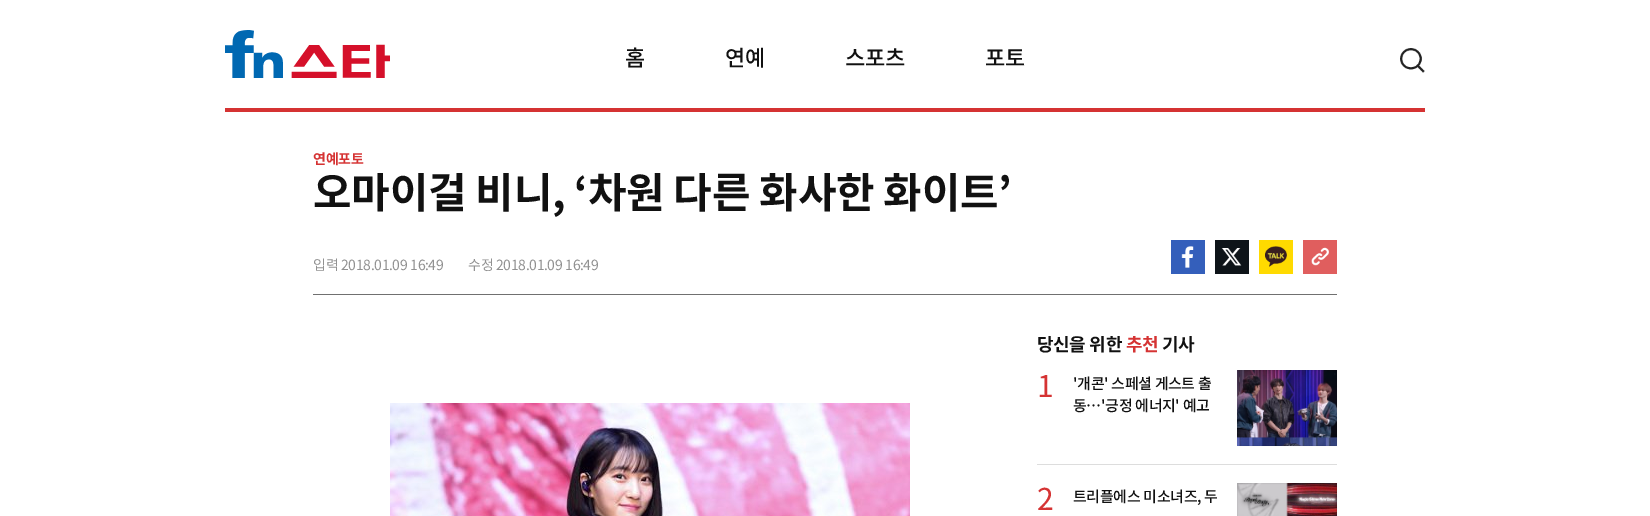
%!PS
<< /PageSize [1650 516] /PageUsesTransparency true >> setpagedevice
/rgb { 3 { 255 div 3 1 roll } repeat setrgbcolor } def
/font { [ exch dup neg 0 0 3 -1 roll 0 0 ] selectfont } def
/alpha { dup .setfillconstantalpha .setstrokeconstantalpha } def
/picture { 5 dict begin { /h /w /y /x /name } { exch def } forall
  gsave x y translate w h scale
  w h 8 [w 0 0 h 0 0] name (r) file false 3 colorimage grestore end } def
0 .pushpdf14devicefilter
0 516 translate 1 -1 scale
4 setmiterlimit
255 255 255 rgb
0 0 1650 516 rectfill
213 51 51 rgb
225 108 1200 4 rectfill
(img_01.rgb) 225 30 165 48 picture
(img_02.rgb) 1400 48 25 25 picture
112 112 112 rgb
313 294 1024 1 rectfill
(img_03.rgb) 1171 240 34 34 picture
(img_04.rgb) 1215 240 34 34 picture
(img_05.rgb) 1259 240 34 34 picture
(img_06.rgb) 1303 240 34 34 picture
(img_07.rgb) 390 403 520 113 picture
221 221 221 rgb
1037 464 300 1 rectfill
(img_08.rgb) 1237 370 100 76 picture
0.05 alpha
0 0 0 rgb
1237.5 370.5 99 75 rectstroke
1 alpha
(img_09.rgb) 1237 483 100 33 picture
0.05 alpha
1237.5 483.5 99 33 rectstroke
/NotoSansKR-Medium 22 font
1 alpha
17 17 17 rgb
625 66 moveto -0.35 0 (홈) ashow
725 66 moveto -0.35 0 (연예) ashow
845 66 moveto -0.35 0 (스포츠) ashow
985 66 moveto -0.35 0 (포토) ashow
/NotoSansKR-Bold 14 font
213 51 51 rgb
313 164 moveto -0.35 0 (연예포토) ashow
/NotoSansKR-Bold 42 font
17 17 17 rgb
313 208 moveto -0.35 0 (오마이걸 비니, ‘차원 다른 화사한 화이트’) ashow
/NotoSansKR-Regular 14 font
145 145 145 rgb
313 270 moveto -0.35 0 (입력 2018.01.09 16:49) ashow
468 270 moveto -0.35 0 (수정 2018.01.09 16:49) ashow
/NotoSansKR-Bold 18 font
17 17 17 rgb
1037 351 moveto -0.35 0 (당신을 위한) ashow
213 51 51 rgb
1126 351 moveto -0.35 0 (추천) ashow
17 17 17 rgb
1162 351 moveto -0.35 0 (기사) ashow
/NotoSansKR-Regular 30 font
213 51 51 rgb
1037 397 moveto -4 0 (1) ashow
/NotoSansKR-Medium 15 font
17 17 17 rgb
1073 389 moveto -0.35 0 ('개콘' 스페셜 게스트 출) ashow
1073 411 moveto -0.35 0 (동…'긍정 에너지' 예고) ashow
/NotoSansKR-Regular 30 font
213 51 51 rgb
1037 510 moveto -4 0 (2) ashow
/NotoSansKR-Medium 15 font
17 17 17 rgb
1073 502 moveto -0.35 0 (트리플에스 미소녀즈, 두) ashow
.poppdf14devicefilter showpage
